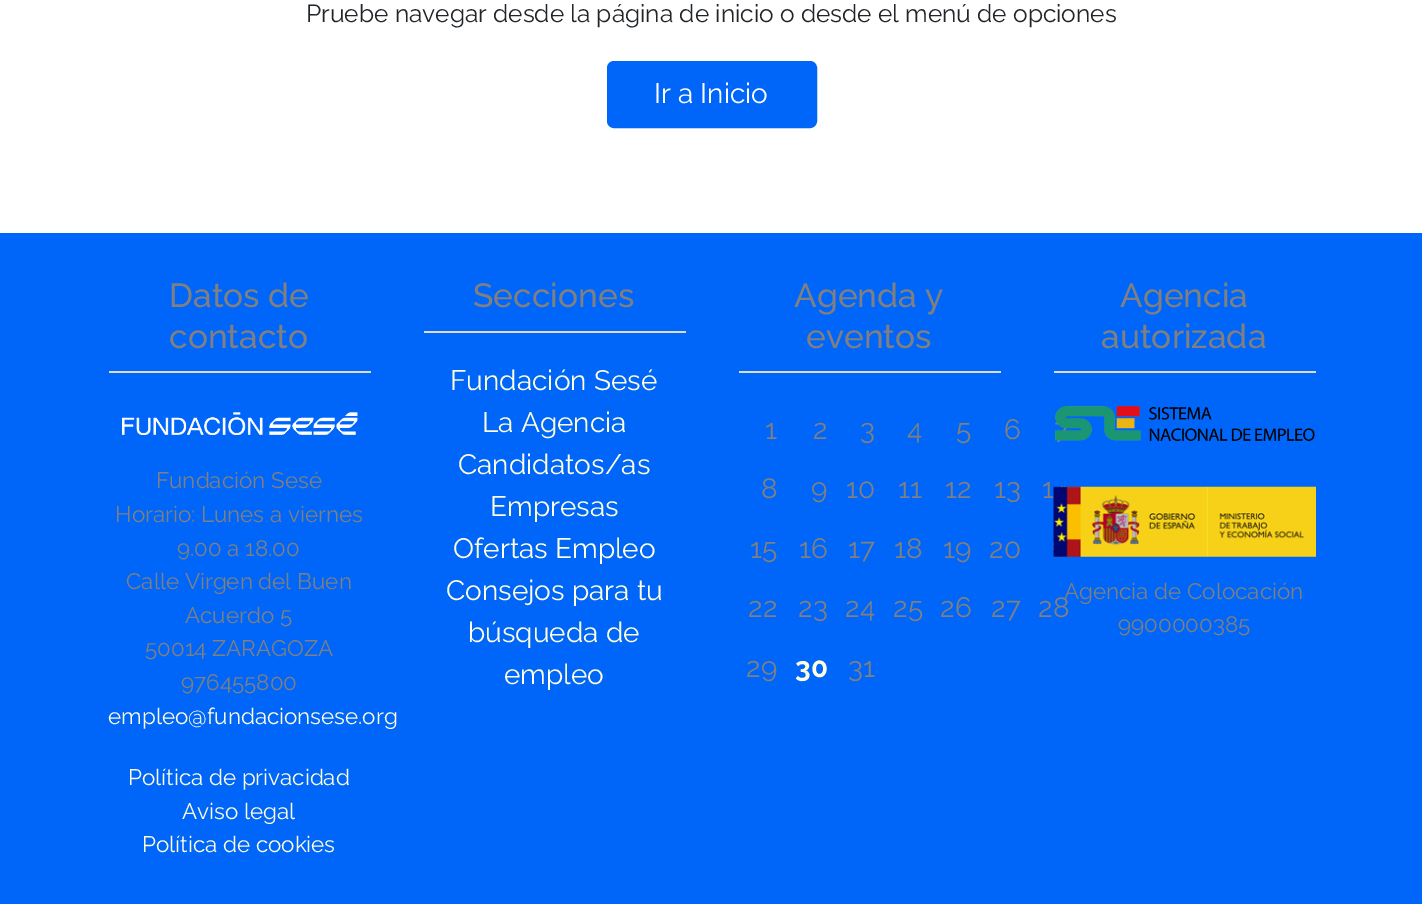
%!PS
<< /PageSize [1422 904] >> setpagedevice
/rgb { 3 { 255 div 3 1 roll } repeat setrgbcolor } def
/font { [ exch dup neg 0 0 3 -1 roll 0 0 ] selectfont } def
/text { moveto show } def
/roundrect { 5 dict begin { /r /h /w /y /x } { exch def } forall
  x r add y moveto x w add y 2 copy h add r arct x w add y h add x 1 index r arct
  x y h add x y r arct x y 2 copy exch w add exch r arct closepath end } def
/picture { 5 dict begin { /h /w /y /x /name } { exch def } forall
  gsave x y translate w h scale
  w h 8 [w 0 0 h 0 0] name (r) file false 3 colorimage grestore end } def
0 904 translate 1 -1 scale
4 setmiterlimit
255 255 255 rgb
0 0 1422 904 rectfill
0 102 249 rgb
608 62 208 65 6 roundrect gsave fill grestore
2 setlinewidth
stroke
0 233 1422 671 rectfill
220 220 220 rgb
109 371 262 2 rectfill
(img_01.rgb) 122 412 236 23 picture
424 331 262 2 rectfill
739 371 262 2 rectfill
1054 371 262 2 rectfill
(img_02.rgb) 1055 405 260 37 picture
/Raleway-Regular 24.5 font
33 37 41 rgb
(Pruebe navegar desde la página de inicio o desde el menú de opciones) 306 22 text
/Raleway-Regular 28 font
255 255 255 rgb
(Ir a Inicio) 654 103 text
/Raleway-Medium 33.5 font
128 128 128 rgb
(Datos de) 169 307 text
(contacto) 169 348 text
/Raleway-Regular 22.4 font
(Fundación Sesé) 156 488 text
(Horario: Lunes a viernes) 115 522 text
(9.00 a 18.00) 177 556 text
(Calle Virgen del Buen) 126 589 text
(Acuerdo 5) 185 623 text
(50014 ZARAGOZA) 145 656 text
(976455800) 181 690 text
255 255 224 rgb
(empleo@fundacionsese.org) 108 724 text
(Política de privacidad) 128 785 text
(Aviso legal) 182 819 text
(Política de cookies) 142 852 text
/Raleway-Medium 33.5 font
128 128 128 rgb
(Secciones) 473 307 text
/Raleway-Regular 28 font
255 255 224 rgb
(Fundación Sesé) 450 390 text
(La Agencia) 482 432 text
(Candidatos/as) 458 474 text
(Empresas) 490 516 text
(Ofertas Empleo) 453 558 text
(Consejos para tu) 446 600 text
(búsqueda de) 468 642 text
(empleo) 504 684 text
/Raleway-Medium 33.5 font
128 128 128 rgb
(Agenda y) 794 307 text
(eventos) 806 348 text
/Raleway-Regular 28 font
(1) 765 439 text
(2) 813 439 text
(3) 860 439 text
(4) 907 439 text
(5) 956 439 text
(6) 1004 439 text
(8) 761 498 text
(9) 811 498 text
(10) 846 498 text
(11) 898 498 text
(12) 945 498 text
(13) 994 498 text
(1) 1042 498 text
(15) 750 558 text
(16) 799 558 text
(17) 848 558 text
(18) 894 558 text
(19) 943 558 text
(20) 989 558 text
(22) 748 617 text
(23) 798 617 text
(24) 845 617 text
(25) 893 617 text
(26) 940 617 text
(27) 991 617 text
(28) 1038 617 text
(29) 746 677 text
/Raleway-Bold 28 font
255 255 224 rgb
(30) 795 677 text
/Raleway-Regular 28 font
128 128 128 rgb
(31) 848 677 text
/Raleway-Medium 33.5 font
(Agencia) 1120 307 text
(autorizada) 1101 348 text
(img_03.rgb) 1053 486 263 71 picture
/Raleway-Regular 22.4 font
(Agencia de Colocación) 1064 599 text
(9900000385) 1118 632 text
showpage
